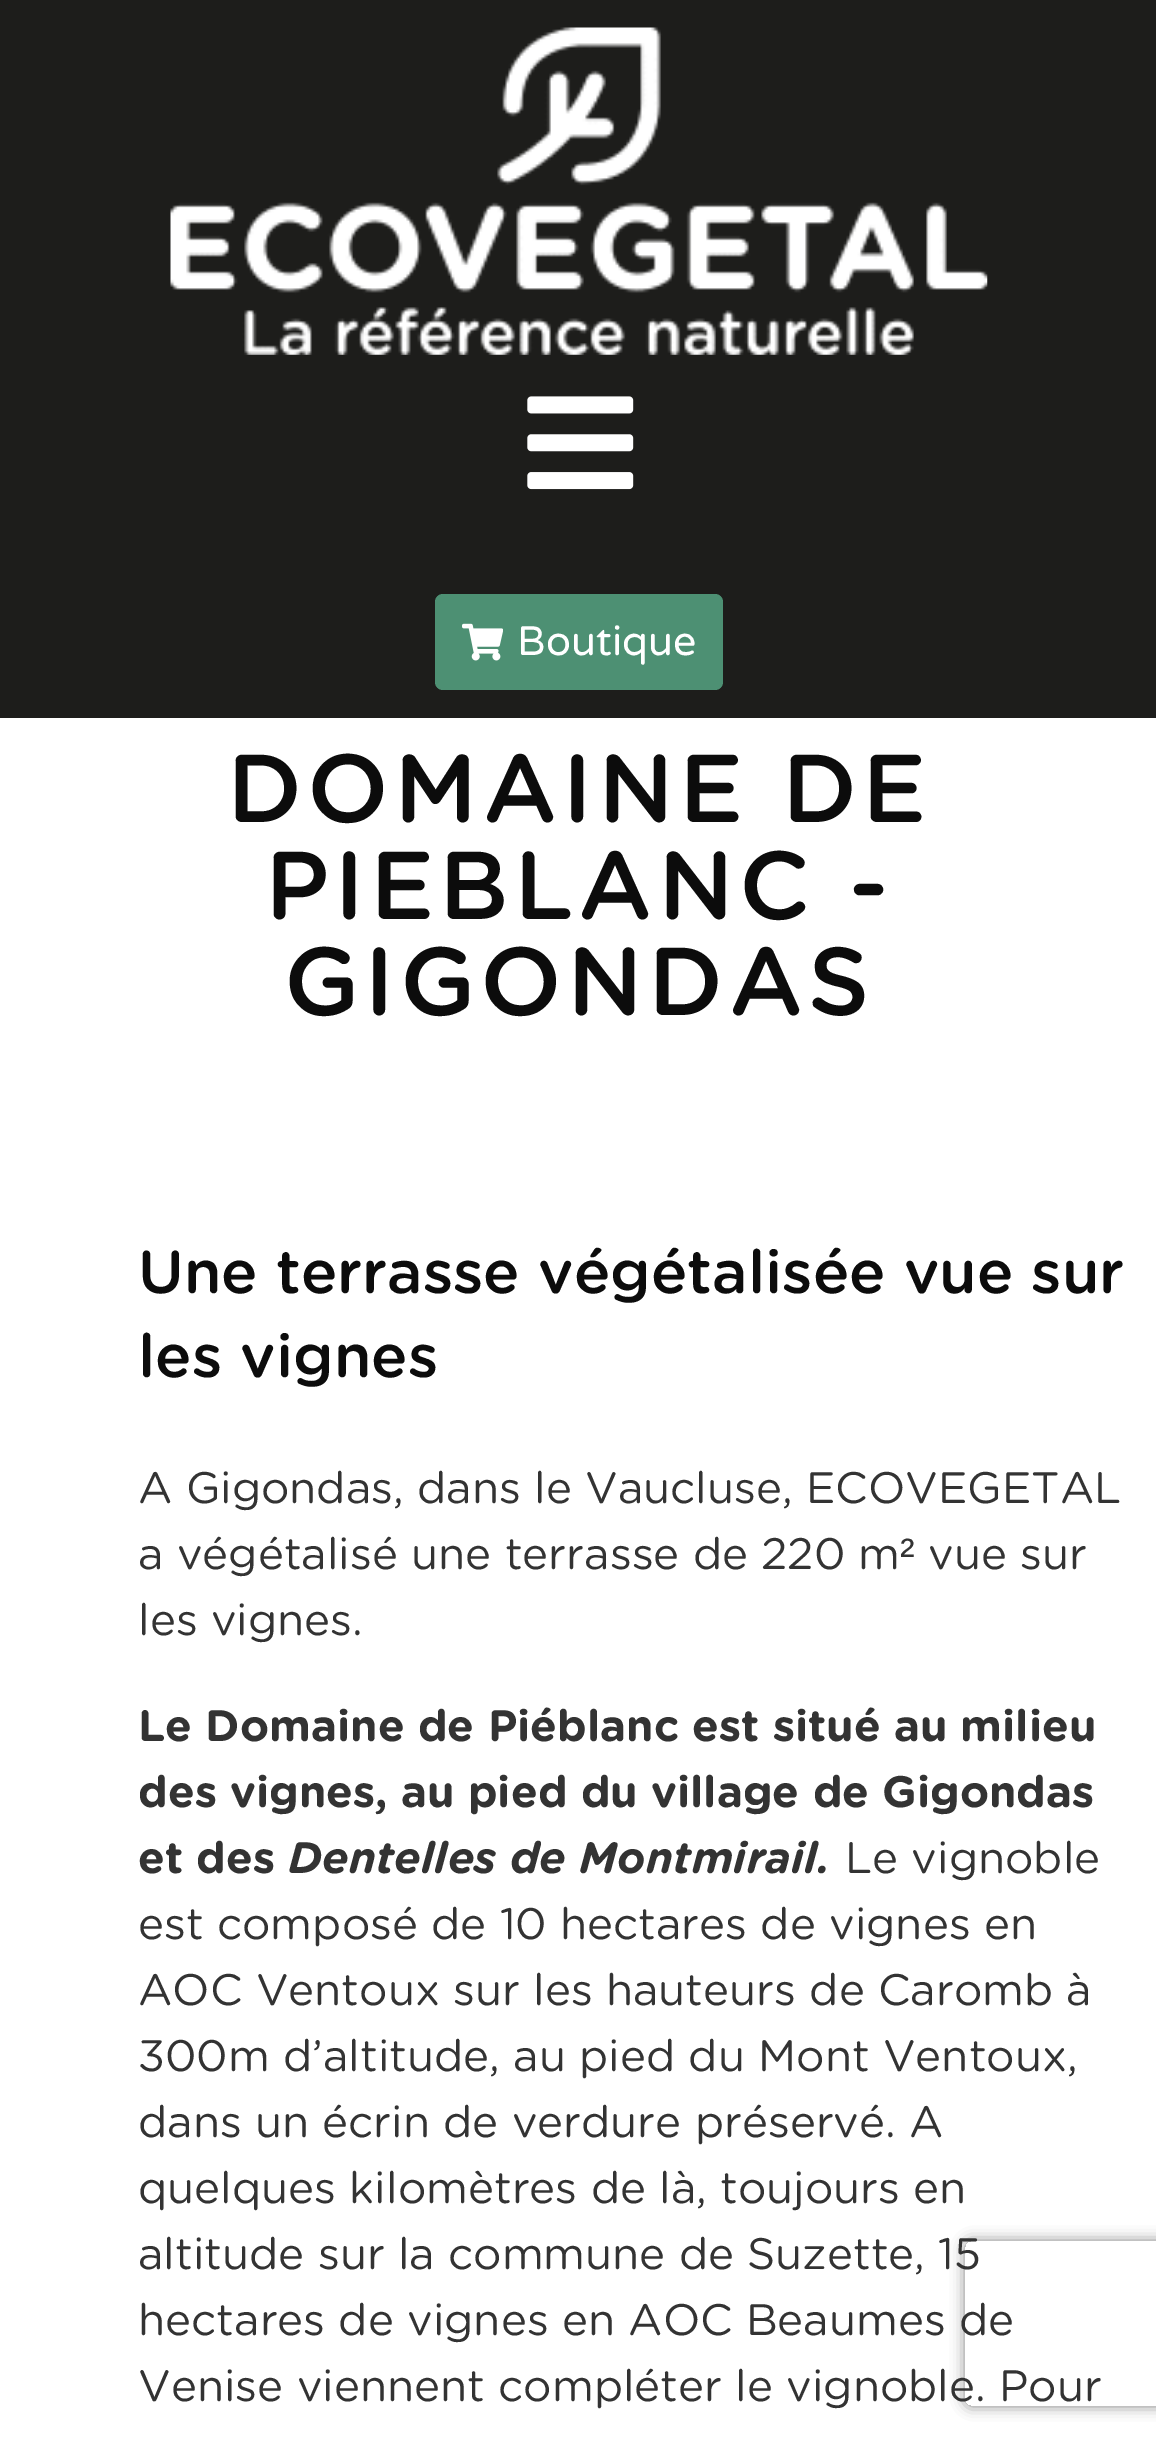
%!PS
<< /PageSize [1156 2444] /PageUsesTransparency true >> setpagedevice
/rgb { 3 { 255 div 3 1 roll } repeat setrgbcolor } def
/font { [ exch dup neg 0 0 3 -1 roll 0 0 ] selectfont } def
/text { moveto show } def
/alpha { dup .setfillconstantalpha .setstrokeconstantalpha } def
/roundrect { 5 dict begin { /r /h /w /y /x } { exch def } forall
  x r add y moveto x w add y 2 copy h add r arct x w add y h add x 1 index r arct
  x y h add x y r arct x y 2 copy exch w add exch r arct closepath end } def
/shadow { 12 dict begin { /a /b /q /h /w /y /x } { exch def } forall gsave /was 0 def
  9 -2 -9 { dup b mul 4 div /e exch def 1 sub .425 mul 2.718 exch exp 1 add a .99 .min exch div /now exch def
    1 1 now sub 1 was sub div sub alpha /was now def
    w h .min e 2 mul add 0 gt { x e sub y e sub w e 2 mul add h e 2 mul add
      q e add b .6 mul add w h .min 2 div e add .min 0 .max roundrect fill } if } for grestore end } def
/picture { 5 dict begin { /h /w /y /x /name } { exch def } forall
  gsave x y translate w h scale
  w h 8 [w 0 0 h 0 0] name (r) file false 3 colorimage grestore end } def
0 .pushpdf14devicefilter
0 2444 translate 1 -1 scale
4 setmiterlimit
255 255 255 rgb
0 0 1156 2444 rectfill
29 29 27 rgb
0 0 1156 718 rectfill
(img_01.rgb) 170 27 818 328 picture
(img_02.rgb) 527 396 107 94 picture
77 144 115 rgb
435 594 288 96 8 roundrect fill
(img_03.rgb) 462 623 41 38 picture
gsave
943 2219 moveto 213 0 rlineto 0 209 rlineto -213 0 rlineto closepath 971 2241 moveto 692 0 rlineto 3.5 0 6 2.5 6 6 rcurveto 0 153 rlineto 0 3.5 -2.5 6 -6 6 rcurveto -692 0 rlineto -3.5 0 -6 -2.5 -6 -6 rcurveto 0 -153 rlineto 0 -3.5 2.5 -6 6 -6 rcurveto closepath eoclip newpath
128 128 128 rgb
965 2241 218 165 6 7 1 shadow
grestore
/VarelaRound-Regular 41.25 font
255 255 255 rgb
(Boutique) 517 655 text
/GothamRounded-Medium 96.25 font
12 12 12 rgb
227 822 moveto 5 0 (DOMAINE DE) ashow
265 919 moveto 5 0 (PIEBLANC -) ashow
284 1015 moveto 5 0 (GIGONDAS) ashow
/GothamRounded-Medium 60.5 font
(Une terrasse végétalisée vue sur) 138 1293 text
(les vignes) 138 1377 text
/GothamRounded-Regular 44 font
51 51 51 rgb
(A Gigondas, dans le Vaucluse, ECOVEGETAL) 138 1503 text
(a végétalisé une terrasse de 220 m) 138 1569 text
/LiberationSans-Regular 44 font
(²) 900 1569 text
/GothamRounded-Regular 44 font
(vue sur) 928 1569 text
(les vignes.) 138 1635 text
/GothamRounded-Bold 44 font
(Le Domaine de Piéblanc est situé au milieu) 138 1741 text
(des vignes, au pied du village de Gigondas) 138 1807 text
(et des) 138 1873 text
/GothamRounded-BoldItalic 44 font
(Dentelles de Montmirail.) 288 1873 text
/GothamRounded-Regular 44 font
(Le vignoble) 845 1873 text
(est composé de 10 hectares de vignes en) 138 1939 text
(AOC Ventoux sur les hauteurs de Caromb à) 138 2005 text
(300m d’altitude, au pied du Mont Ventoux,) 138 2071 text
(dans un écrin de verdure préservé. A) 138 2137 text
(quelques kilomètres de là, toujours en) 138 2203 text
(altitude sur la commune de Suzette, 15) 138 2269 text
(hectares de vignes en AOC Beaumes de) 138 2335 text
(Venise viennent compléter le vignoble. Pour) 138 2401 text
.poppdf14devicefilter showpage
